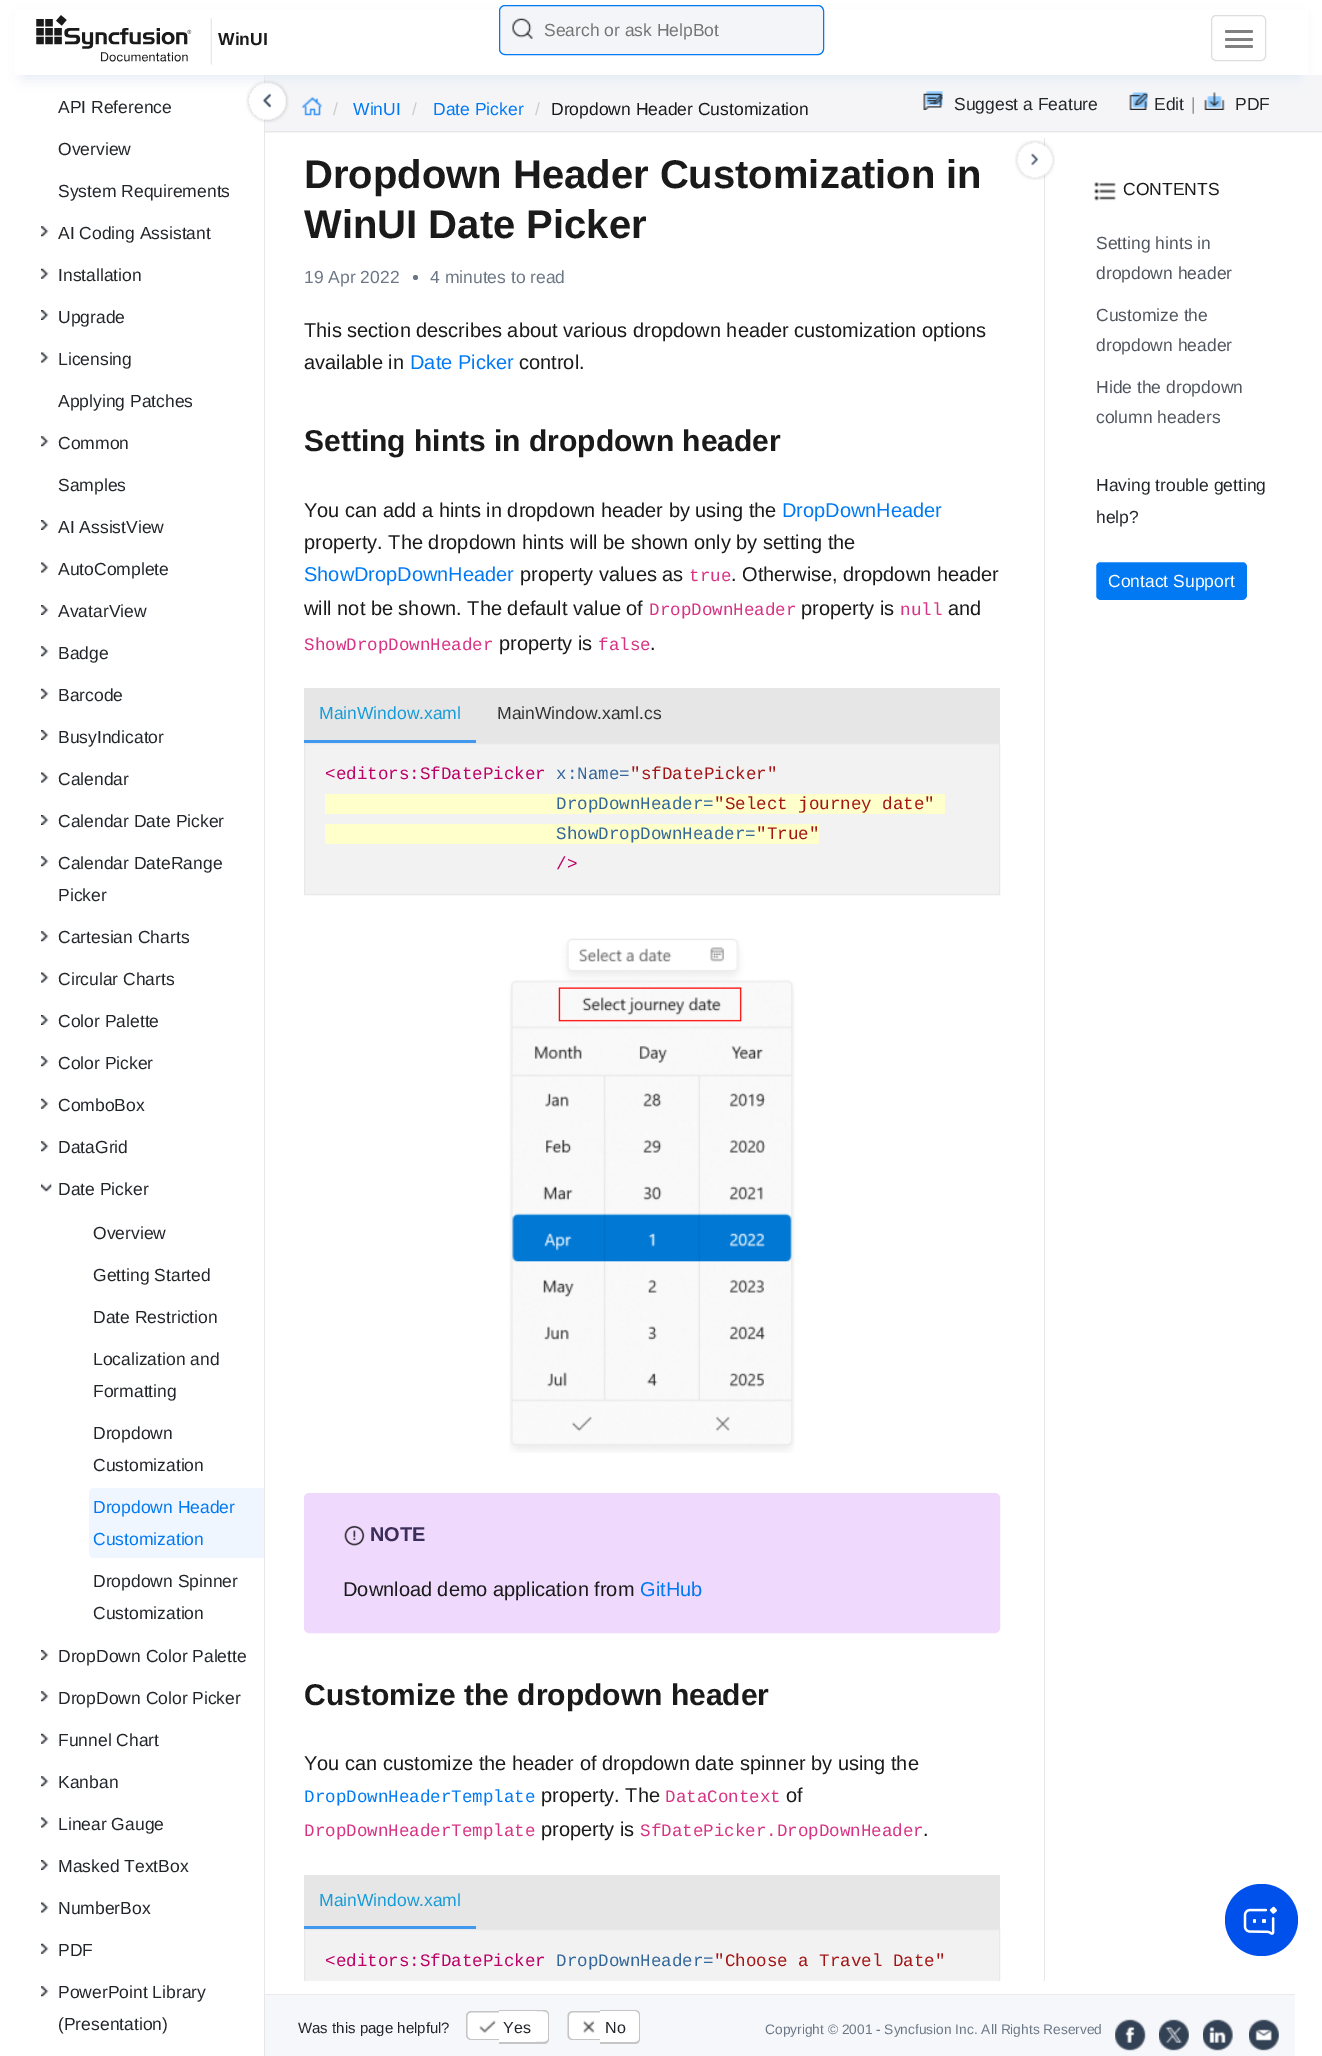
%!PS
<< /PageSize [1322 2056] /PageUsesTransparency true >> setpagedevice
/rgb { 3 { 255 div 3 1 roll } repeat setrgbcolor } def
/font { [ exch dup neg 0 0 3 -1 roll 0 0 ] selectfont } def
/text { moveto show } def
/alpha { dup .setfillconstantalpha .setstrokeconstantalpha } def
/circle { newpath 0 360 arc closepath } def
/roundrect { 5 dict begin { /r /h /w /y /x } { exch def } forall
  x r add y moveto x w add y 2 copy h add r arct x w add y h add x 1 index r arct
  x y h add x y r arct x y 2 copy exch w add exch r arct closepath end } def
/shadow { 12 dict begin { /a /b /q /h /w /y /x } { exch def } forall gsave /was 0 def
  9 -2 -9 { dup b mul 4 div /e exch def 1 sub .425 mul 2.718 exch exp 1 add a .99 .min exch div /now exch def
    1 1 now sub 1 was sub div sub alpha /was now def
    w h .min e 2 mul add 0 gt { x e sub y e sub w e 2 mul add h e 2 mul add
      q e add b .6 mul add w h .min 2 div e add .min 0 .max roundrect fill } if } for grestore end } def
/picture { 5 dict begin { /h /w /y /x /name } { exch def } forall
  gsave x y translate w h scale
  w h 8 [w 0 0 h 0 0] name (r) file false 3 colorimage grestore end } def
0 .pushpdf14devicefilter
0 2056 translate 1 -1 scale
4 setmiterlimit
255 255 255 rgb
0 0 1322 2056 rectfill
245 245 247 rgb
265 75 1057 58 rectfill
(img_03.rgb) 301 96 21 20 picture
(img_04.rgb) 923 91 20 19 picture
(img_05.rgb) 1129 92 19 18 picture
(img_06.rgb) 1204 92 21 18 picture
231 231 231 rgb
264 75 1 1981 rectfill
(img_12.rgb) 246 80 43 43 picture
226 234 245 rgb
23 18 1277 60 0 7 1 shadow
255 255 255 rgb
15 9 1293 66 rectfill
(img_01.rgb) 36 15 176 50 picture
244 245 248 rgb
499 5 325 50 6 roundrect fill
(img_02.rgb) 512 18 21 21 picture
0 121 243 rgb
499.5 5.5 324 49 5.5 roundrect stroke
221 221 221 rgb
1211.5 15.5 54 45 4.5 roundrect stroke
128 128 128 rgb
1225 30 28 3 1.5 roundrect fill
1225 38 28 3 1.5 roundrect fill
1225 45 28 3 1.5 roundrect fill
231 231 231 rgb
265 131 1057 1 rectfill
(img_07.rgb) 41 226 8 11 picture
(img_08.rgb) 41 268 8 11 picture
(img_09.rgb) 41 310 8 10 picture
(img_10.rgb) 41 352 8 11 picture
(img_07.rgb) 41 436 8 11 picture
(img_09.rgb) 41 520 8 10 picture
(img_10.rgb) 41 562 8 11 picture
(img_09.rgb) 41 605 8 10 picture
(img_07.rgb) 41 646 8 11 picture
(img_08.rgb) 41 688 8 11 picture
(img_09.rgb) 41 730 8 10 picture
(img_10.rgb) 41 772 8 11 picture
(img_09.rgb) 41 815 8 10 picture
(img_07.rgb) 41 856 8 11 picture
(img_07.rgb) 41 931 8 11 picture
(img_10.rgb) 41 972 8 11 picture
(img_09.rgb) 41 1015 8 10 picture
(img_07.rgb) 41 1056 8 11 picture
(img_08.rgb) 41 1098 8 11 picture
(img_07.rgb) 41 1141 8 11 picture
(img_11.rgb) 41 1183 11 9 picture
239 246 255 rgb
94 1488 moveto 170 0 rlineto 0 70 rlineto -170 0 rlineto -3 0 -5 -2 -5 -5 rcurveto 0 -60 rlineto 0 -3 2 -5 5 -5 rcurveto closepath fill
(img_09.rgb) 41 1650 8 10 picture
(img_07.rgb) 41 1691 8 11 picture
(img_08.rgb) 41 1733 8 11 picture
(img_07.rgb) 41 1776 8 11 picture
(img_10.rgb) 41 1817 8 11 picture
(img_09.rgb) 41 1860 8 10 picture
(img_10.rgb) 41 1902 8 11 picture
(img_08.rgb) 41 1943 8 11 picture
(img_07.rgb) 41 1986 8 11 picture
231 231 231 rgb
1044 138 1 1843 rectfill
108 119 134 rgb
415.5 277.5 2.5 circle fill
230 230 230 rgb
476 688 524 55 rectfill
304 688 172 52 rectfill
65 152 239 rgb
304 740 172 3 rectfill
242 242 242 rgb
304.5 743.5 moveto 695 0 rlineto 0 151 rlineto -695 0 rlineto closepath gsave fill grestore
232 232 232 rgb
stroke
255 255 204 rgb
325 794 620 20 rectfill
325 824 494 20 rectfill
(img_13.rgb) 509 938 286 515 picture
239 217 253 rgb
304.5 1493.5 695 139 4.5 roundrect gsave fill grestore
stroke
(img_14.rgb) 344 1525 21 21 picture
230 230 230 rgb
476 1875 524 54 rectfill
304 1875 172 51 rectfill
65 152 239 rgb
304 1926 172 3 rectfill
242 242 242 rgb
305 1930 694 51 rectfill
gsave
304 138 740 1843 rectclip
232 232 232 rgb
304.5 1929.5 695 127 rectstroke
grestore
(img_15.rgb) 1015 140 40 40 picture
(img_16.rgb) 1094 182 22 19 picture
0 121 243 rgb
1095.5 561.5 152 39 4.5 roundrect gsave fill grestore
255 255 255 rgb
stroke
0 80 235 rgb
1225 1884 73 72 36 roundrect fill
(img_17.rgb) 1243 1906 34 29 picture
245 247 250 rgb
265 1995 1030 61 rectfill
234 234 234 rgb
265 1994 1030 1 rectfill
255 255 255 rgb
471 2011 moveto 28 0 rlineto 0 29 rlineto -28 0 rlineto -3 0 -5 -2 -5 -5 rcurveto 0 -19 rlineto 0 -3 2 -5 5 -5 rcurveto closepath fill
197 197 197 rgb
471 2011 moveto 28 0 rlineto 0 29 rlineto -28 0 rlineto -2.5 0 -5 -2 -5 -5 rcurveto 0 -19 rlineto 0 -2.5 2.5 -5 5 -5 rcurveto closepath 471 2012.5 moveto 28 0 rlineto 0 26.5 rlineto -28 0 rlineto -2 0 -3.5 -2 -3.5 -4 rcurveto 0 -19 rlineto 0 -2 1.5 -3.5 3.5 -3.5 rcurveto closepath eofill
255 255 255 rgb
499 2010 moveto 45 0 rlineto 3 0 5 2 5 5 rcurveto 0 24 rlineto 0 3 -2 5 -5 5 rcurveto -45 0 rlineto closepath fill
197 197 197 rgb
499 2010 moveto 45 0 rlineto 3 0 5 2 5 5 rcurveto 0 24 rlineto 0 3 -2 5 -5 5 rcurveto -45 0 rlineto closepath 499 2011 moveto 37 0 rlineto 15 0 12 1 12 16 rcurveto 0 15 3 15 -12 15 rcurveto -37 0 rlineto closepath eofill
(img_18.rgb) 479 2020 17 13 picture
255 255 255 rgb
573 2011 moveto 27 0 rlineto 0 29 rlineto -27 0 rlineto -3 0 -5 -2 -5 -5 rcurveto 0 -19 rlineto 0 -3 2 -5 5 -5 rcurveto closepath fill
197 197 197 rgb
572.5 2011 moveto 27.5 0 rlineto 0 29 rlineto -27.5 0 rlineto -3 0 -5 -2 -5 -5 rcurveto 0 -19 rlineto 0 -2.5 2 -5 5 -5 rcurveto closepath 572.5 2012.5 moveto 27.5 0 rlineto 0 26.5 rlineto -27.5 0 rlineto -2 0 -3.5 -2 -3.5 -4 rcurveto 0 -19 rlineto 0 -2 1.5 -3.5 3.5 -3.5 rcurveto closepath eofill
255 255 255 rgb
600 2010 moveto 35 0 rlineto 3 0 5 2 5 5 rcurveto 0 24 rlineto 0 3 -2 5 -5 5 rcurveto -35 0 rlineto closepath fill
197 197 197 rgb
600 2010 moveto 35 0 rlineto 3 0 5 2 5 5 rcurveto 0 24 rlineto 0 3 -2 5 -5 5 rcurveto -35 0 rlineto closepath 600 2011 moveto 35 0 rlineto 2 0 4 2 4 4 rcurveto 0 24 rlineto 0 2 -2 3 -4 3 rcurveto -35 0 rlineto closepath eofill
(img_19.rgb) 583 2020 12 13 picture
(img_20.rgb) 1115 2019 31 32 picture
(img_21.rgb) 1159 2019 30 32 picture
(img_22.rgb) 1203 2019 30 32 picture
(img_23.rgb) 1249 2019 30 32 picture
/LiberationSans-Bold 17.5 font
26 26 26 rgb
(WinUI) 218 45 text
/LiberationSans-Regular 17.5 font
117 117 117 rgb
(Search or ask HelpBot) 544 36 text
204 204 204 rgb
(/) 333 115 text
0 121 243 rgb
(WinUI) 353 115 text
204 204 204 rgb
(/) 412 115 text
0 121 243 rgb
(Date Picker) 433 115 text
204 204 204 rgb
(/) 535 115 text
26 26 26 rgb
(Dropdown Header Customization) 551 115 text
34 37 42 rgb
(Suggest a Feature) 954 110 text
(Edit) 1154 110 text
151 151 151 rgb
(|) 1191 110 text
34 37 42 rgb
(PDF) 1235 110 text
(API Reference) 58 113 text
(Overview) 58 155 text
(System Requirements) 58 197 text
(AI Coding Assistant) 58 239 text
(Installation) 58 281 text
(Upgrade) 58 323 text
(Licensing) 58 365 text
(Applying Patches) 58 407 text
(Common) 58 449 text
(Samples) 58 491 text
(AI AssistView) 58 533 text
(AutoComplete) 58 575 text
(AvatarView) 58 617 text
(Badge) 58 659 text
(Barcode) 58 701 text
(BusyIndicator) 58 743 text
(Calendar) 58 785 text
(Calendar Date Picker) 58 827 text
(Calendar DateRange) 58 869 text
(Picker) 58 901 text
(Cartesian Charts) 58 943 text
(Circular Charts) 58 985 text
(Color Palette) 58 1027 text
(Color Picker) 58 1069 text
(ComboBox) 58 1111 text
(DataGrid) 58 1153 text
(Date Picker) 58 1195 text
(Overview) 93 1239 text
(Getting Started) 93 1281 text
(Date Restriction) 93 1323 text
(Localization and) 93 1365 text
(Formatting) 93 1397 text
(Dropdown) 93 1439 text
(Customization) 93 1471 text
0 121 243 rgb
(Dropdown Header) 93 1513 text
(Customization) 93 1545 text
34 37 42 rgb
(Dropdown Spinner) 93 1587 text
(Customization) 93 1619 text
(DropDown Color Palette) 58 1662 text
(DropDown Color Picker) 58 1704 text
(Funnel Chart) 58 1746 text
(Kanban) 58 1788 text
(Linear Gauge) 58 1830 text
(Masked TextBox) 58 1872 text
(NumberBox) 58 1914 text
(PDF) 58 1956 text
(PowerPoint Library) 58 1998 text
(\(Presentation\)) 58 2030 text
/LiberationSans-Bold 40 font
26 26 26 rgb
(Dropdown Header Customization in) 304 188 text
(WinUI Date Picker) 304 238 text
/LiberationSans-Regular 17.5 font
108 119 134 rgb
(19 Apr 2022) 304 283 text
(4 minutes to read) 430 283 text
/LiberationSans-Regular 20 font
26 26 26 rgb
(This section describes about various dropdown header customization options) 304 337 text
(available in) 304 369 text
0 121 243 rgb
(Date Picker) 410 369 text
26 26 26 rgb
(control.) 519 369 text
/LiberationSans-Bold 30 font
(Setting hints in dropdown header) 304 451 text
/LiberationSans-Regular 20 font
(You can add a hints in dropdown header by using the) 304 517 text
0 121 243 rgb
(DropDownHeader) 782 517 text
26 26 26 rgb
(property. The dropdown hints will be shown only by setting the) 304 549 text
0 121 243 rgb
(ShowDropDownHeader) 304 581 text
26 26 26 rgb
(property values as) 520 581 text
/LiberationMono-Regular 17.5 font
214 51 132 rgb
(true) 689 581 text
/LiberationSans-Regular 20 font
26 26 26 rgb
(. Otherwise, dropdown header) 731 581 text
(will not be shown. The default value of) 304 615 text
/LiberationMono-Regular 17.5 font
214 51 132 rgb
(DropDownHeader) 649 615 text
/LiberationSans-Regular 20 font
26 26 26 rgb
(property is) 801 615 text
/LiberationMono-Regular 17.5 font
214 51 132 rgb
(null) 900 615 text
/LiberationSans-Regular 20 font
26 26 26 rgb
(and) 948 615 text
/LiberationMono-Regular 17.5 font
214 51 132 rgb
(ShowDropDownHeader) 304 650 text
/LiberationSans-Regular 20 font
26 26 26 rgb
(property is) 499 650 text
/LiberationMono-Regular 17.5 font
214 51 132 rgb
(false) 598 650 text
/LiberationSans-Regular 20 font
26 26 26 rgb
(.) 650 650 text
/LiberationSans-Regular 17.5 font
23 155 215 rgb
(MainWindow.xaml) 319 719 text
51 51 51 rgb
(MainWindow.xaml.cs) 497 719 text
/LiberationMono-Regular 17.5 font
187 0 102 rgb
(<editors:SfDatePicker) 325 779 text
51 102 153 rgb
(x:Name=) 556 779 text
163 21 21 rgb
("sfDatePicker") 630 779 text
51 102 153 rgb
(DropDownHeader=) 556 809 text
163 21 21 rgb
("Select journey date") 714 809 text
51 102 153 rgb
(ShowDropDownHeader=) 556 839 text
163 21 21 rgb
("True") 756 839 text
187 0 102 rgb
(/>) 556 869 text
/LiberationSans-Bold 20 font
59 46 88 rgb
(NOTE) 370 1541 text
/LiberationSans-Regular 20 font
26 26 26 rgb
(Download demo application from) 343 1596 text
0 121 243 rgb
(GitHub) 640 1596 text
/LiberationSans-Bold 30 font
26 26 26 rgb
(Customize the dropdown header) 304 1705 text
/LiberationSans-Regular 20 font
(You can customize the header of dropdown date spinner by using the) 304 1770 text
/LiberationMono-Regular 17.5 font
0 121 243 rgb
(DropDownHeaderTemplate) 304 1802 text
/LiberationSans-Regular 20 font
26 26 26 rgb
(property. The) 541 1802 text
/LiberationMono-Regular 17.5 font
214 51 132 rgb
(DataContext) 665 1802 text
/LiberationSans-Regular 20 font
26 26 26 rgb
(of) 786 1802 text
/LiberationMono-Regular 17.5 font
214 51 132 rgb
(DropDownHeaderTemplate) 304 1836 text
/LiberationSans-Regular 20 font
26 26 26 rgb
(property is) 541 1836 text
/LiberationMono-Regular 17.5 font
214 51 132 rgb
(SfDatePicker.DropDownHeader) 640 1836 text
/LiberationSans-Regular 20 font
26 26 26 rgb
(.) 923 1836 text
/LiberationSans-Regular 17.5 font
23 155 215 rgb
(MainWindow.xaml) 319 1906 text
/LiberationMono-Regular 17.5 font
187 0 102 rgb
(<editors:SfDatePicker) 325 1966 text
51 102 153 rgb
(DropDownHeader=) 556 1966 text
163 21 21 rgb
("Choose a Travel Date") 714 1966 text
/LiberationSans-Regular 17.5 font
26 26 26 rgb
(CONTENTS) 1123 195 text
80 86 95 rgb
(Setting hints in) 1096 249 text
(dropdown header) 1096 279 text
(Customize the) 1096 321 text
(dropdown header) 1096 351 text
(Hide the dropdown) 1096 393 text
(column headers) 1096 423 text
34 37 42 rgb
(Having trouble getting) 1096 491 text
(help?) 1096 523 text
255 255 255 rgb
(Contact Support) 1108 587 text
/LiberationSans-Regular 15 font
34 37 42 rgb
(Was this page helpful?) 298 2033 text
/LiberationSans-Regular 16 font
(Yes) 503 2033 text
(No) 605 2033 text
/LiberationSans-Regular 13.75 font
108 119 134 rgb
(Copyright © 2001 - Syncfusion Inc. All Rights Reserved) 765 2034 text
.poppdf14devicefilter showpage
